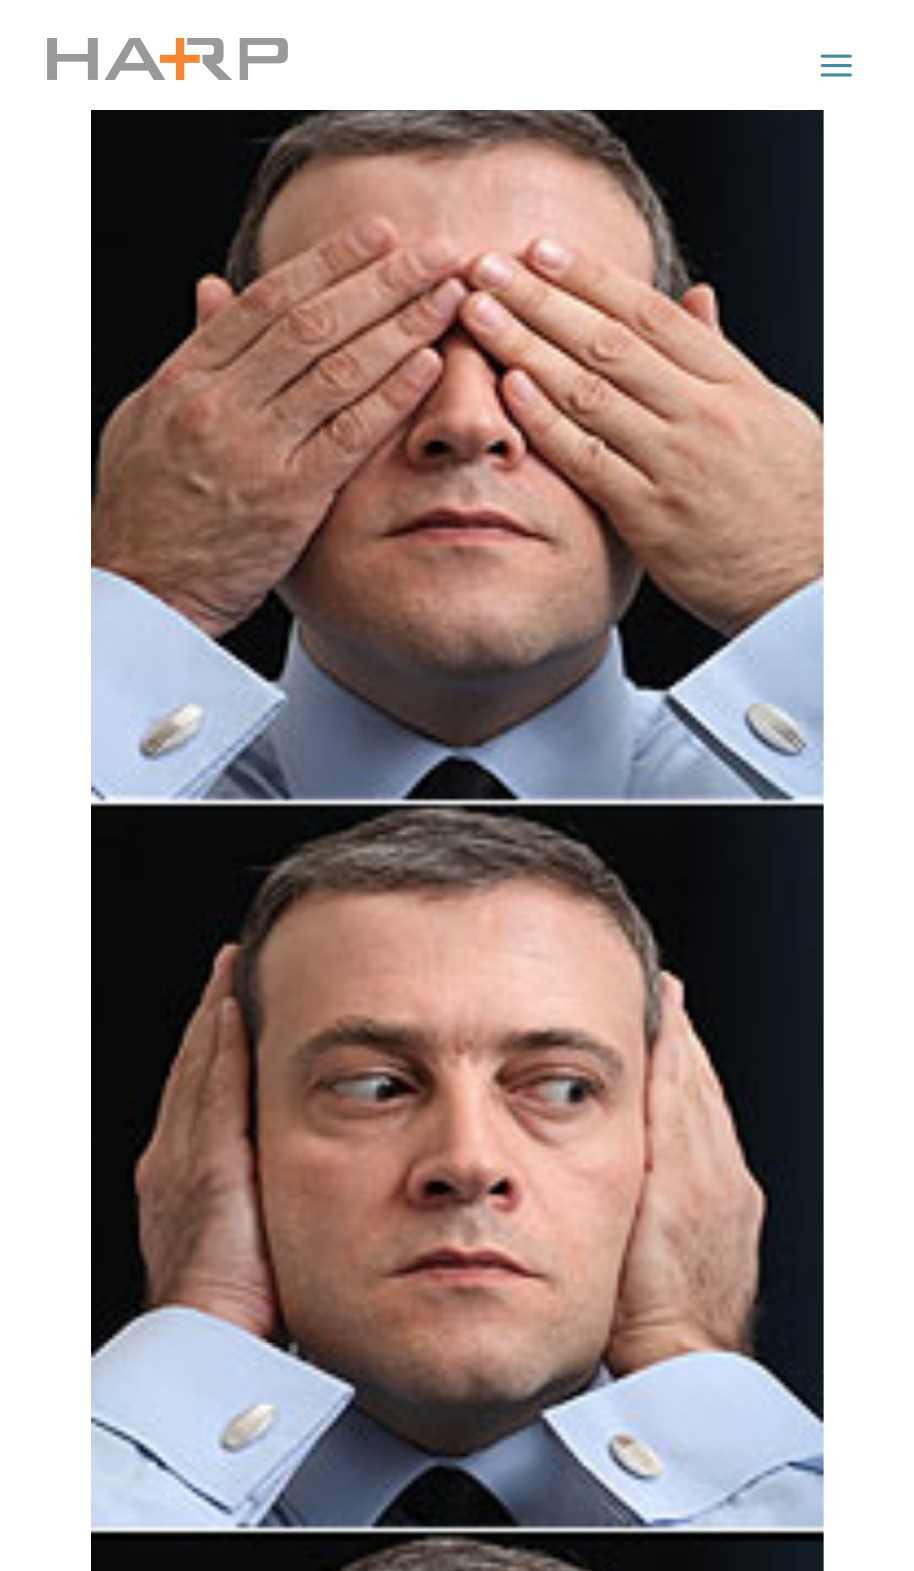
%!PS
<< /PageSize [914 1571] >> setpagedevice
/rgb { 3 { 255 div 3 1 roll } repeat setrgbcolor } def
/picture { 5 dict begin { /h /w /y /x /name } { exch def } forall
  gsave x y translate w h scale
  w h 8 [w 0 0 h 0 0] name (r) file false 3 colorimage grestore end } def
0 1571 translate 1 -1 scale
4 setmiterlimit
255 255 255 rgb
0 0 914 1571 rectfill
(img_01.rgb) 47 38 241 42 picture
(img_02.rgb) 820 54 32 23 picture
(img_03.rgb) 91 110 733 1461 picture
showpage
